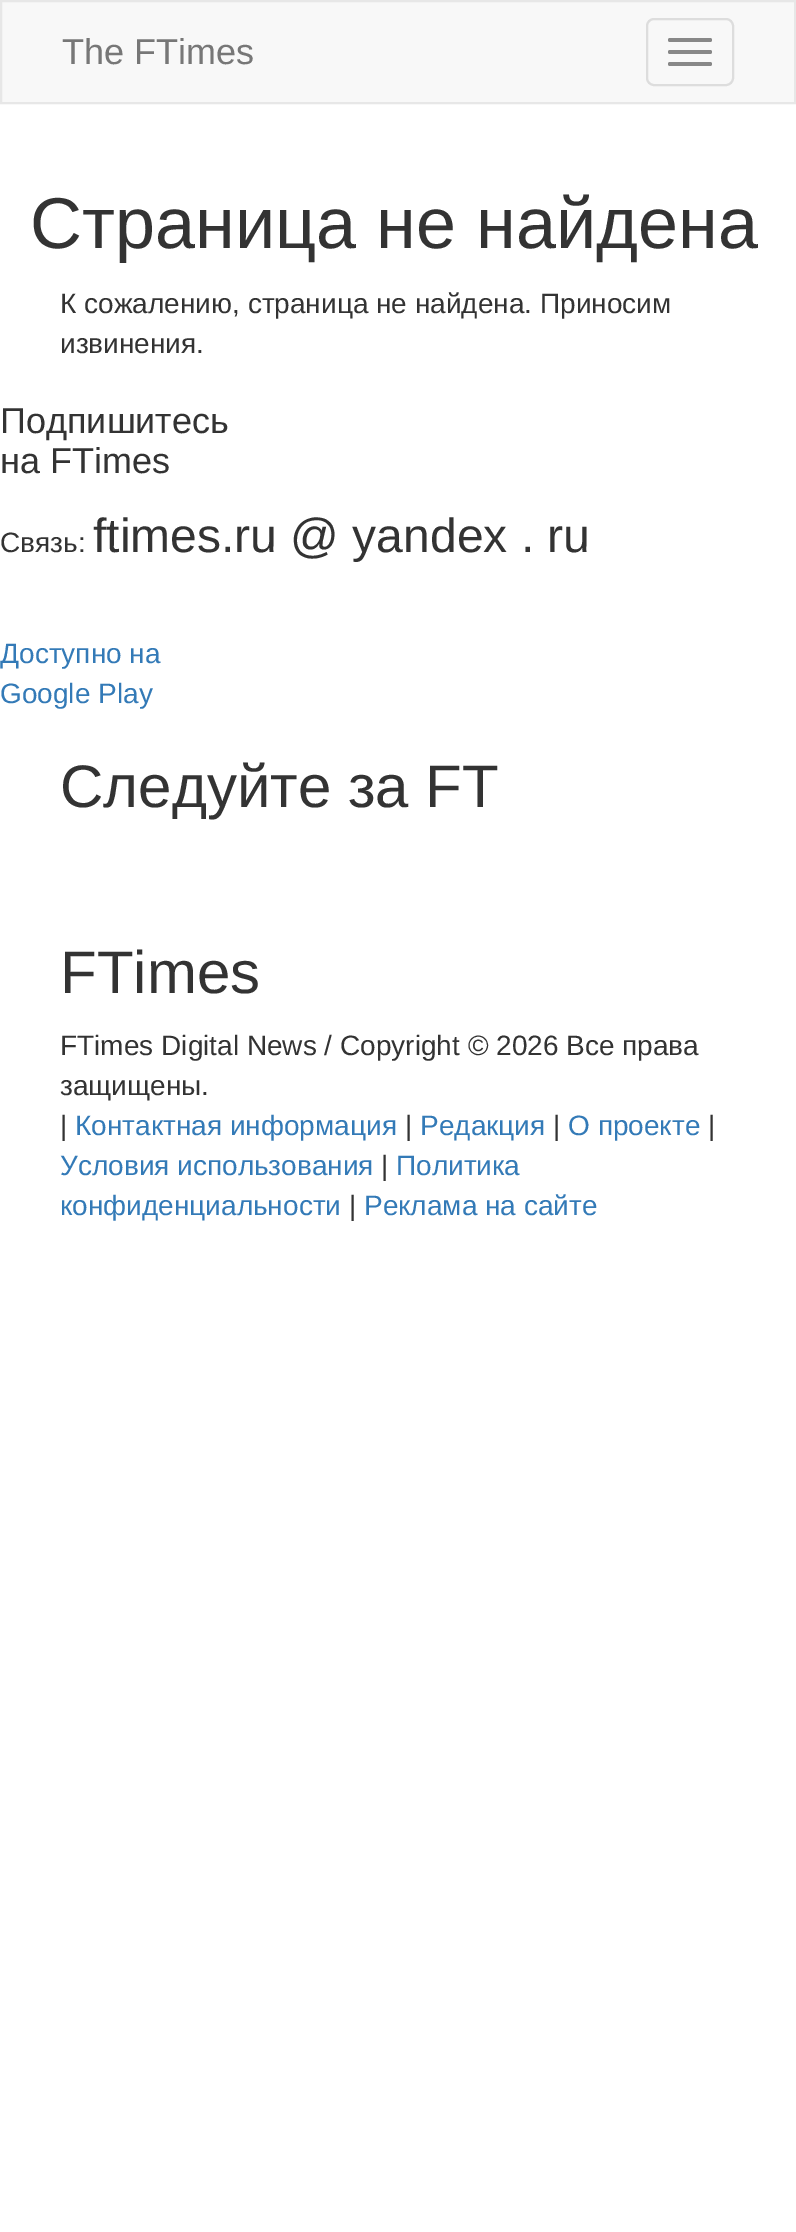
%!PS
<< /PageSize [796 2232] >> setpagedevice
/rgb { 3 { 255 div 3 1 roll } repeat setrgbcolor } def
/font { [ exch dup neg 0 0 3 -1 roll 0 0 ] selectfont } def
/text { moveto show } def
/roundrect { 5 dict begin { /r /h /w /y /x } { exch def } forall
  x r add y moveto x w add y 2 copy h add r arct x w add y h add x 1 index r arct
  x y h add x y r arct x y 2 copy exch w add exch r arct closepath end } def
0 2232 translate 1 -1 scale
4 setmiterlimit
255 255 255 rgb
0 0 796 2232 rectfill
248 248 248 rgb
1 1 moveto 794 0 rlineto 0 102 rlineto -794 0 rlineto closepath gsave fill grestore
231 231 231 rgb
2 setlinewidth
stroke
221 221 221 rgb
647 19 86 66 7 roundrect stroke
136 136 136 rgb
668 38 44 4 2 roundrect fill
668 50 44 4 2 roundrect fill
668 62 44 4 2 roundrect fill
/LiberationSans-Regular 36 font
119 119 119 rgb
(The FTimes) 62 64 text
/LiberationSans-Regular 72 font
51 51 51 rgb
(Страница не найдена) 30 248 text
/LiberationSans-Regular 28 font
(К сожалению, страница не найдена. Приносим) 60 313 text
(извинения.) 60 353 text
/LiberationSans-Regular 36 font
(Подпишитесь) 0 433 text
(на FTimes) 0 473 text
/LiberationSans-Regular 28 font
(Связь:) 0 552 text
/LiberationSans-Regular 48 font
(ftimes.ru @ yandex . ru) 93 552 text
/LiberationSans-Regular 28 font
51 122 183 rgb
(Доступно на) 0 663 text
(Google Play) 0 703 text
/LiberationSans-Regular 60 font
51 51 51 rgb
(Следуйте за FT) 60 807 text
(FTimes) 60 993 text
/LiberationSans-Regular 28 font
(FTimes Digital News / Copyright © 2026 Все права) 60 1055 text
(защищены.) 60 1095 text
(|) 60 1135 text
51 122 183 rgb
(Контактная информация) 75 1135 text
51 51 51 rgb
(|) 405 1135 text
51 122 183 rgb
(Редакция) 420 1135 text
51 51 51 rgb
(|) 553 1135 text
51 122 183 rgb
(О проекте) 568 1135 text
51 51 51 rgb
(|) 708 1135 text
51 122 183 rgb
(Условия использования) 60 1175 text
51 51 51 rgb
(|) 381 1175 text
51 122 183 rgb
(Политика) 396 1175 text
(конфиденциальности) 60 1215 text
51 51 51 rgb
(|) 349 1215 text
51 122 183 rgb
(Реклама на сайте) 364 1215 text
showpage
